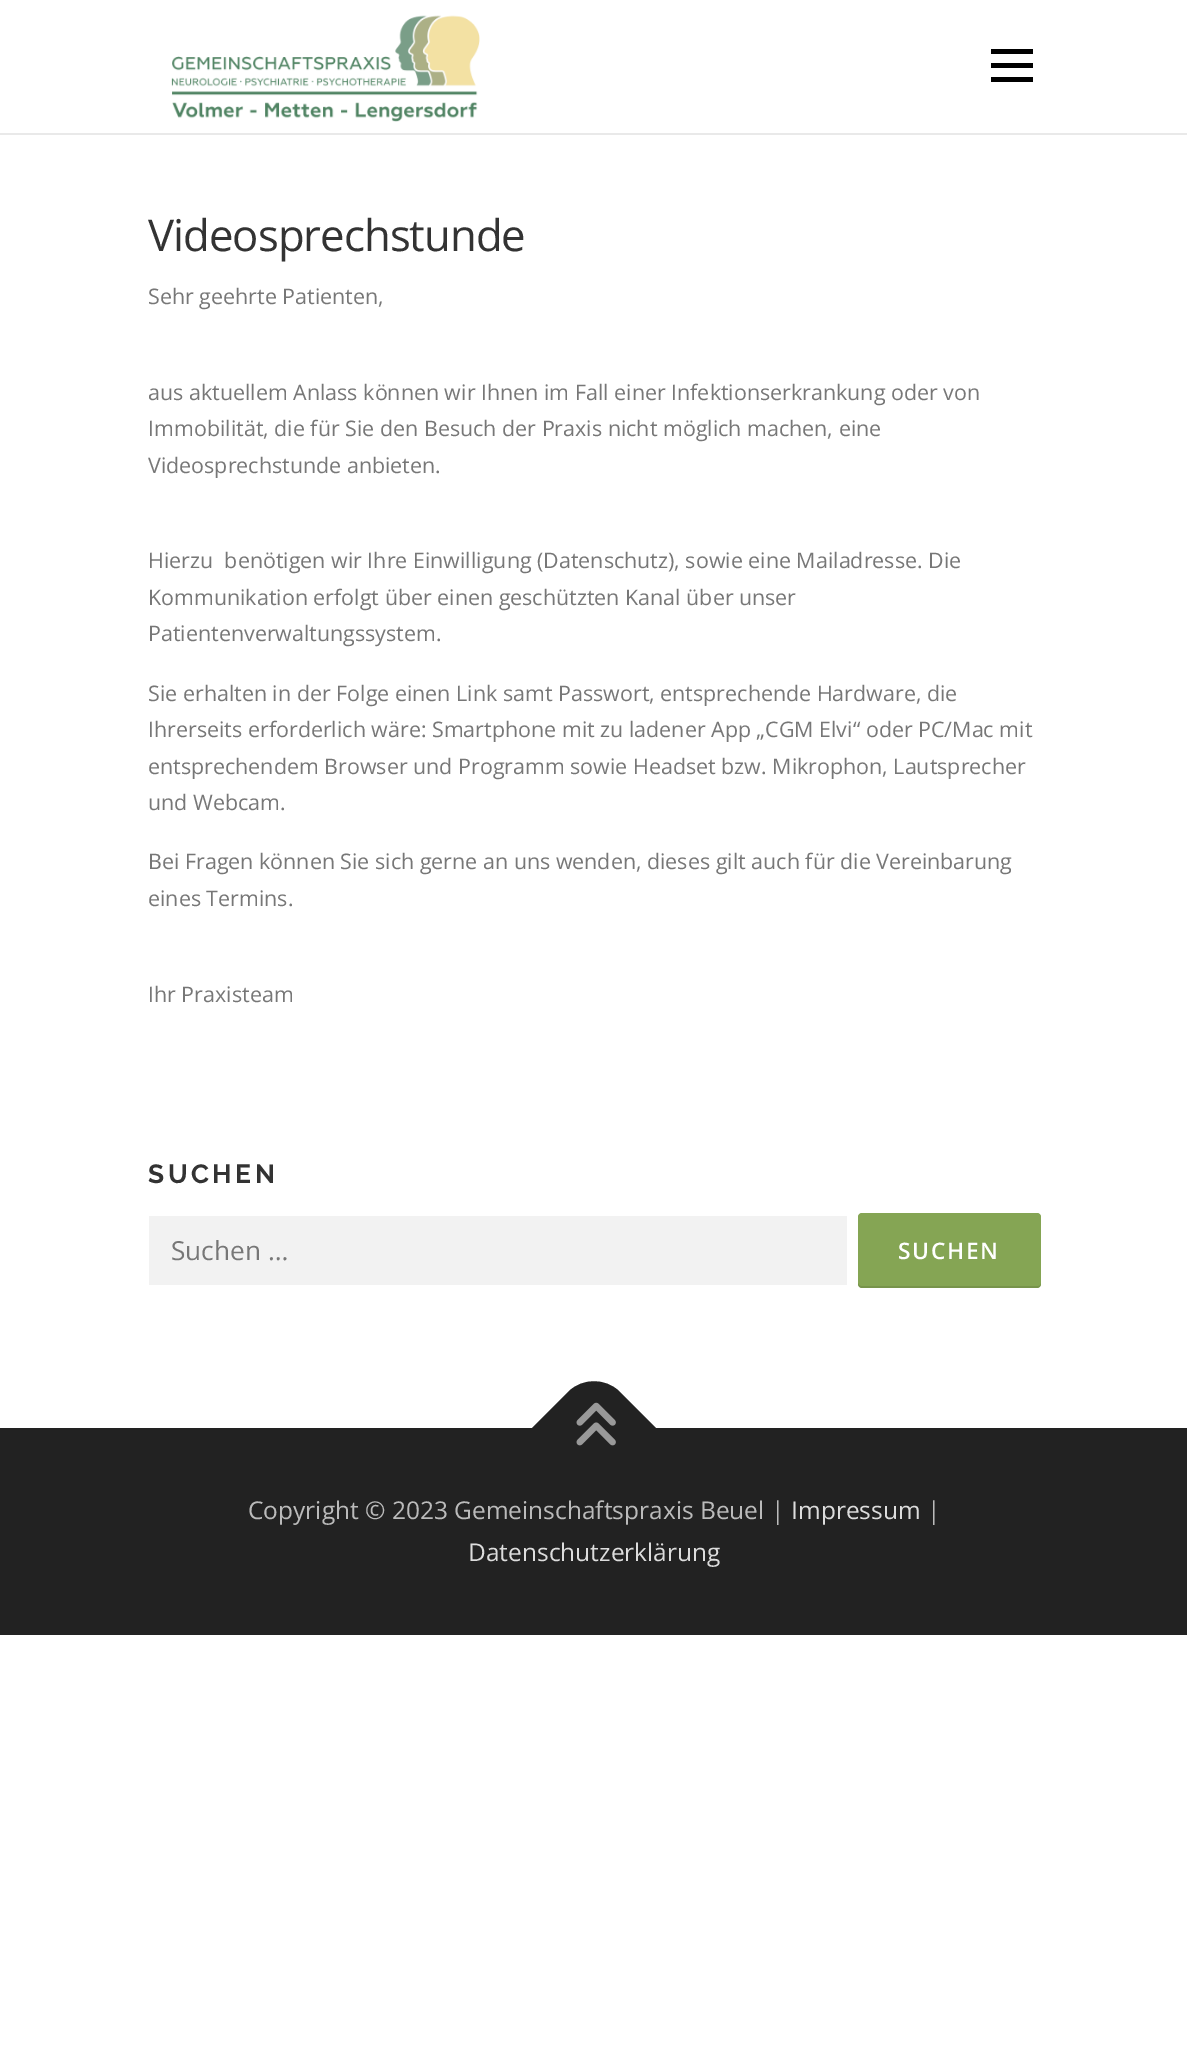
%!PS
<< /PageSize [1187 2058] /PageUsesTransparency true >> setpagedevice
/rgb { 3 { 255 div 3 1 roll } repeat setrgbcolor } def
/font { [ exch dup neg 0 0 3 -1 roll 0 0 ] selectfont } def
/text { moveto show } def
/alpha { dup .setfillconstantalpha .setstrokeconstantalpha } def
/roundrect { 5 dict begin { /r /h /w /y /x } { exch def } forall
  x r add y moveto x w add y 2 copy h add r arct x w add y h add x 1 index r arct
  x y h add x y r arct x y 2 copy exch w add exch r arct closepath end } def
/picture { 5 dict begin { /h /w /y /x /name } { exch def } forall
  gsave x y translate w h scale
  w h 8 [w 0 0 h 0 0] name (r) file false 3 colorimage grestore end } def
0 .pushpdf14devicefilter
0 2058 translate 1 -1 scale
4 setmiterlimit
255 255 255 rgb
0 0 1187 2058 rectfill
(img_01.rgb) 171 15 309 107 picture
0 0 0 rgb
991 63 42 5 rectfill
991 49 42 5 rectfill
991 77 42 5 rectfill
233 233 233 rgb
0 133 1187 2 rectfill
242 242 242 rgb
149 1216 698 69 rectfill
133 165 84 rgb
858 1213 183 75 4 roundrect fill
0.1 alpha
0 0 0 rgb
858 1283 moveto 0 1 rlineto 0 2 2 4 4 4 rcurveto 175 0 rlineto 2 0 4 -2 4 -4 rcurveto 0 -1 rlineto 0 2 -1 3 -3 3 rcurveto -177 0 rlineto -2 -1 rlineto closepath fill
1 alpha
34 34 34 rgb
0 1428 1187 207 rectfill
532 1428 moveto 37 -37 rlineto 14 -13 36 -13 50 0 rcurveto 37 37 rlineto -62 62 rlineto closepath fill
(img_02.rgb) 576 1402 40 44 picture
/OpenSans-Regular 43.75 font
51 51 51 rgb
148 251 moveto -1 0 (Videosprechstunde) ashow
/OpenSans-Regular 21.45 font
119 119 119 rgb
(Sehr geehrte Patienten,) 148 304 text
(aus aktuellem Anlass können wir Ihnen im Fall einer Infektionserkrankung oder von) 148 400 text
(Immobilität, die für Sie den Besuch der Praxis nicht möglich machen, eine) 148 436 text
(Videosprechstunde anbieten.) 148 473 text
(Hierzu  benötigen wir Ihre Einwilligung \(Datenschutz\), sowie eine Mailadresse. Die) 148 568 text
(Kommunikation erfolgt über einen geschützten Kanal über unser) 148 605 text
(Patientenverwaltungssystem.) 148 641 text
(Sie erhalten in der Folge einen Link samt Passwort, entsprechende Hardware, die) 148 701 text
(Ihrerseits erforderlich wäre: Smartphone mit zu ladener App „CGM Elvi“ oder PC/Mac mit) 148 737 text
(entsprechendem Browser und Programm sowie Headset bzw. Mikrophon, Lautsprecher) 148 774 text
(und Webcam.) 148 810 text
(Bei Fragen können Sie sich gerne an uns wenden, dieses gilt auch für die Vereinbarung) 148 869 text
(eines Termins.) 148 906 text
(Ihr Praxisteam) 148 1002 text
/Raleway-Bold 26.25 font
51 51 51 rgb
148 1183 moveto 3.5 0 (SUCHEN) ashow
/OpenSans-Regular 26.25 font
119 119 119 rgb
(Suchen …) 171 1260 text
/OpenSans-SemiBold 22.75 font
255 255 255 rgb
898 1259 moveto 1.75 0 (SUCHEN) ashow
/OpenSans-Regular 24.5 font
187 187 187 rgb
(Copyright © 2023 Gemeinschaftspraxis Beuel |) 248 1519 text
221 221 221 rgb
(Impressum) 791 1519 text
187 187 187 rgb
(|) 927 1519 text
221 221 221 rgb
(Datenschutzerklärung) 468 1561 text
.poppdf14devicefilter showpage
